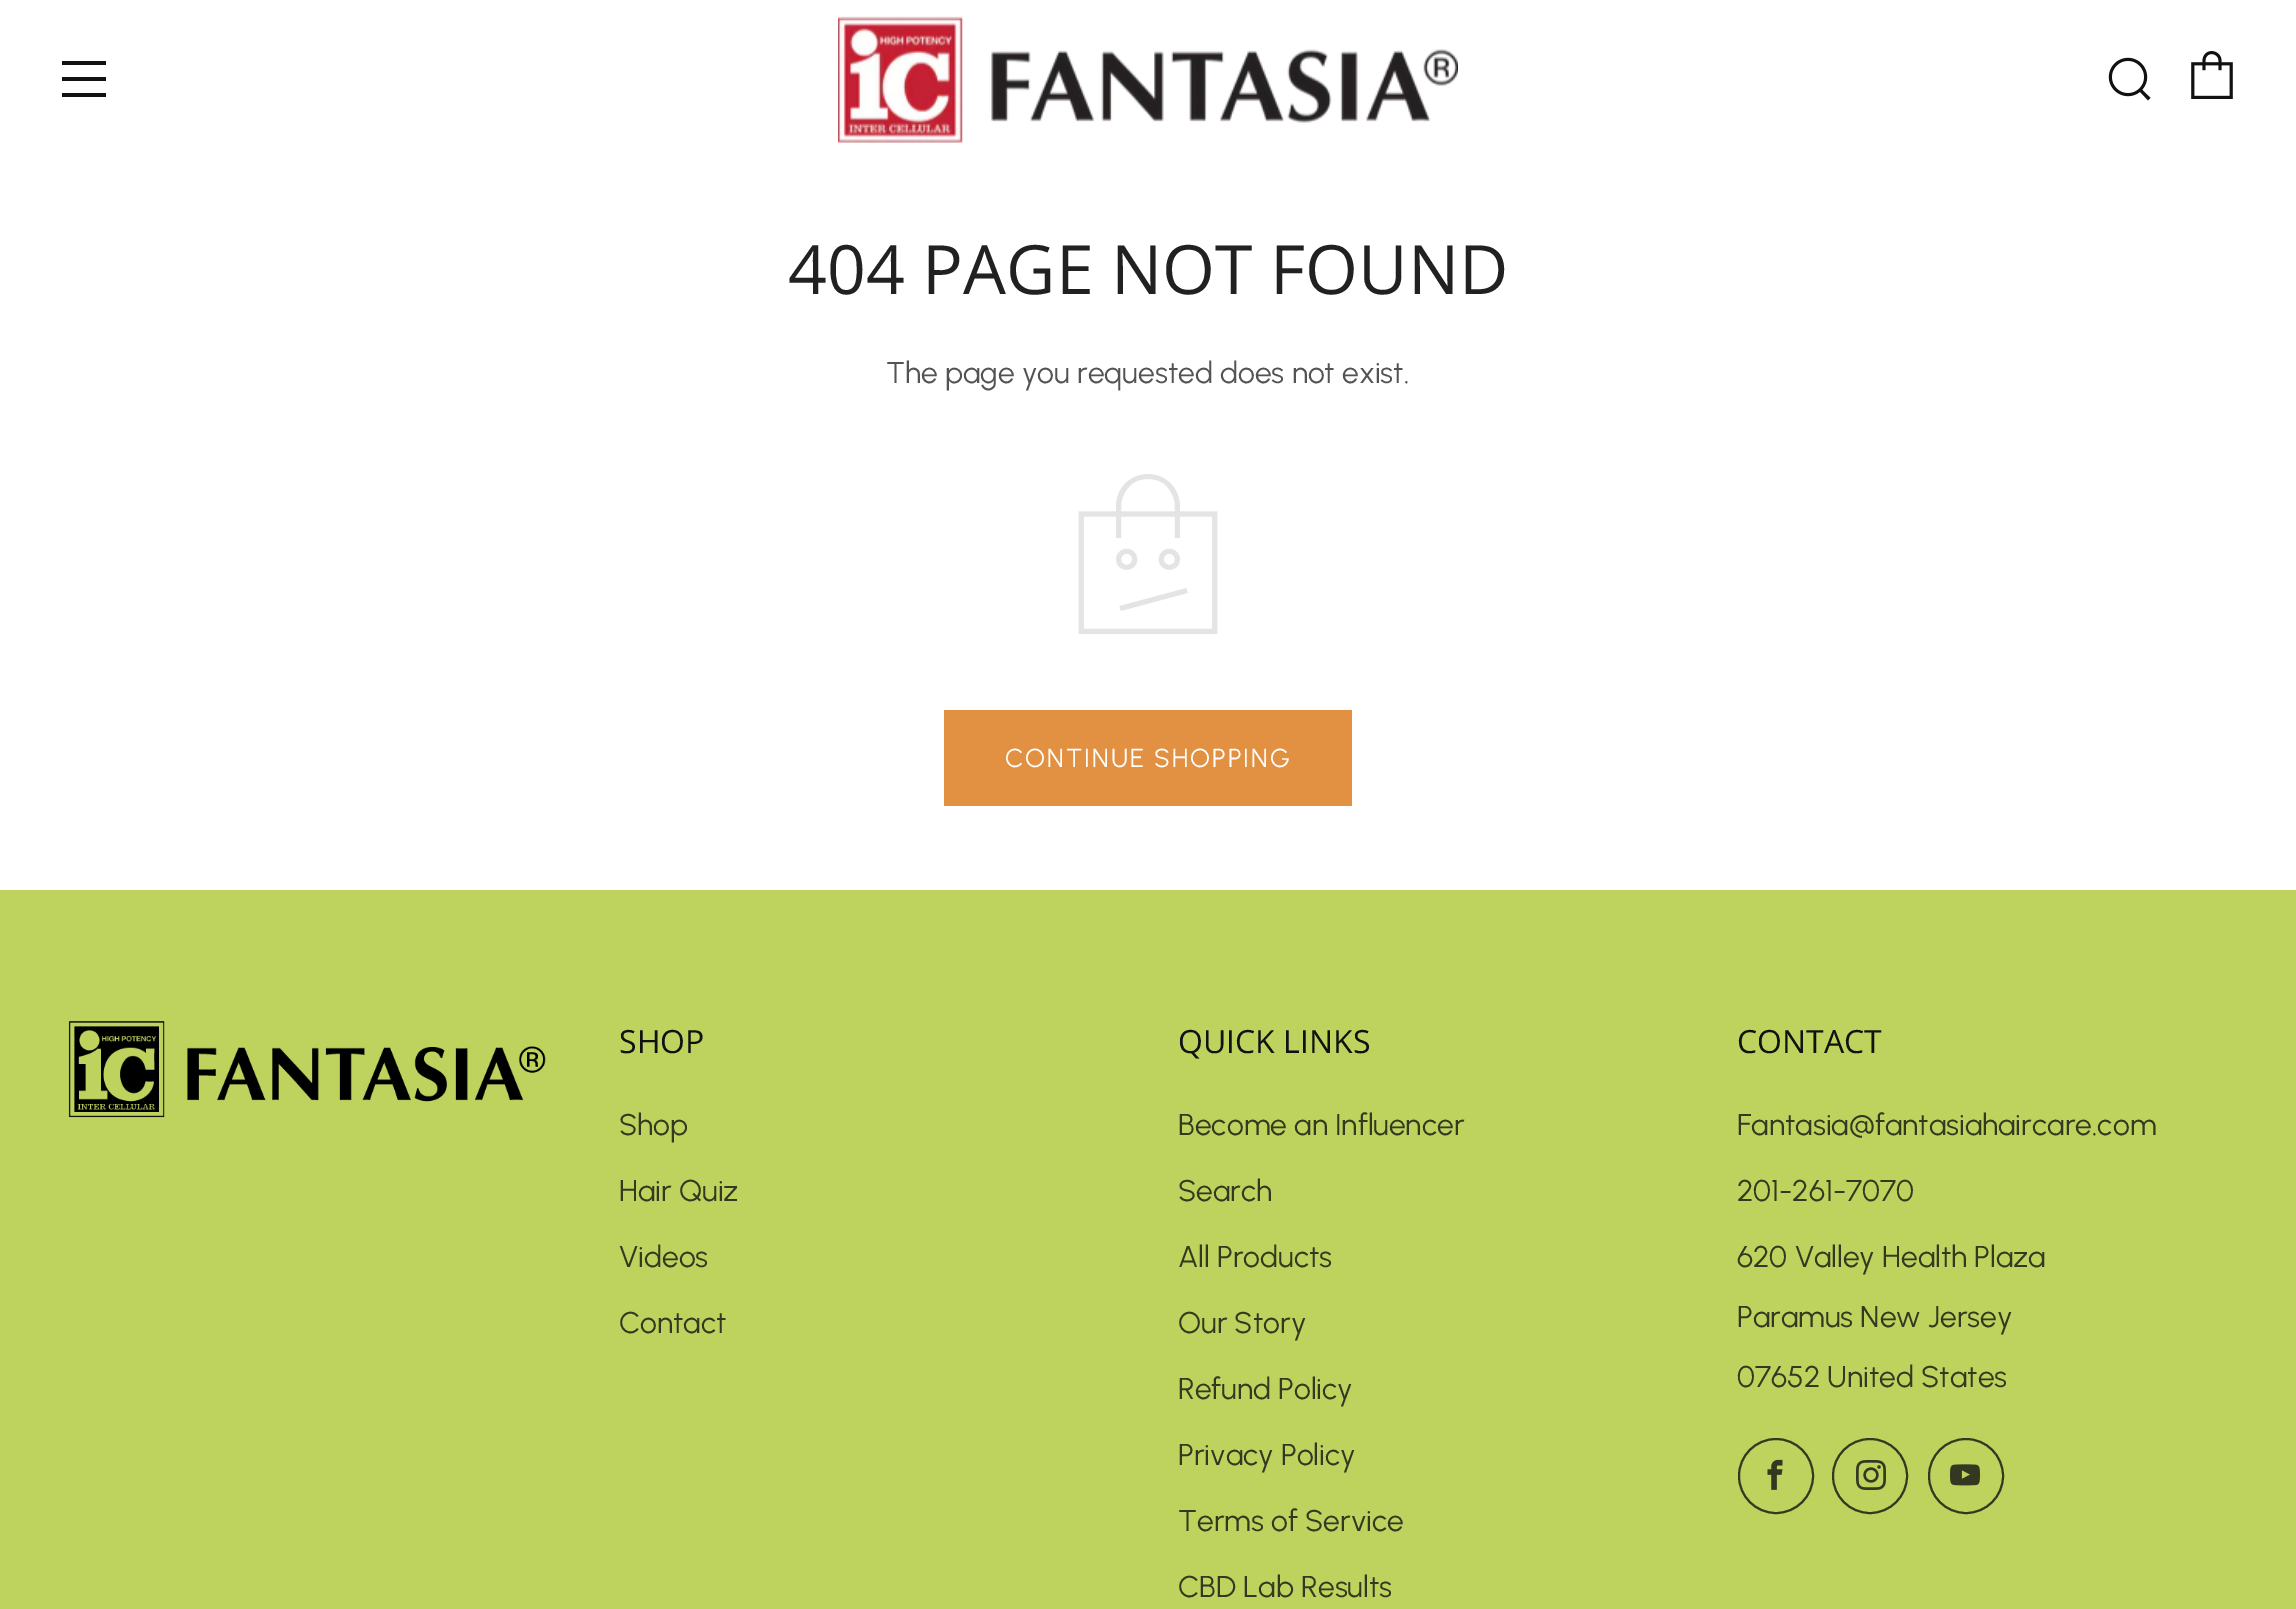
%!PS
<< /PageSize [2296 1609] >> setpagedevice
/rgb { 3 { 255 div 3 1 roll } repeat setrgbcolor } def
/font { [ exch dup neg 0 0 3 -1 roll 0 0 ] selectfont } def
/text { moveto show } def
/circle { newpath 0 360 arc closepath } def
/picture { 5 dict begin { /h /w /y /x /name } { exch def } forall
  gsave x y translate w h scale
  w h 8 [w 0 0 h 0 0] name (r) file false 3 colorimage grestore end } def
0 1609 translate 1 -1 scale
4 setmiterlimit
255 255 255 rgb
0 0 2296 1609 rectfill
17 17 17 rgb
62 65 moveto 44 0 rlineto 0 -4 rlineto -44 0 rlineto closepath 62 97 moveto 44 0 rlineto 0 -4 rlineto -44 0 rlineto closepath 62 81 moveto 44 0 rlineto 0 -4 rlineto -44 0 rlineto closepath fill
(img_01.rgb) 838 16 620 127 picture
(img_02.rgb) 2108 57 43 44 picture
(img_03.rgb) 2191 51 42 48 picture
(img_04.rgb) 1078 474 140 160 picture
226 145 66 rgb
944 710 408 96 rectfill
190 210 94 rgb
0 890 2296 719 rectfill
(img_05.rgb) 68 1021 478 97 picture
52 56 32 rgb
2 setlinewidth
1776 1476 37 circle stroke
(img_06.rgb) 1767 1459 16 31 picture
1870 1476 37 circle stroke
(img_07.rgb) 1856 1460 30 30 picture
1966 1476 37 circle stroke
(img_08.rgb) 1950 1464 30 22 picture
/OpenSans-Regular 68 font
33 33 33 rgb
(404 PAGE NOT FOUND) 788 294 text
/Urbanist-Regular 30 font
83 83 83 rgb
(The page you requested does not exist.) 886 383 text
/Urbanist-Regular 26 font
255 255 255 rgb
1005 767 moveto 2 0 (CONTINUE SHOPPING) ashow
/OpenSans-Regular 32 font
17 17 17 rgb
(SHOP) 619 1053 text
/Urbanist-Regular 30 font
52 56 32 rgb
(Shop) 619 1135 text
(Hair Quiz) 619 1201 text
(Videos) 619 1267 text
(Contact) 619 1333 text
/OpenSans-Regular 32 font
17 17 17 rgb
(QUICK LINKS) 1178 1053 text
/Urbanist-Regular 30 font
52 56 32 rgb
(Become an Influencer) 1178 1135 text
(Search) 1178 1201 text
(All Products) 1178 1267 text
(Our Story) 1178 1333 text
(Refund Policy) 1178 1399 text
(Privacy Policy) 1178 1465 text
(Terms of Service) 1178 1531 text
(CBD Lab Results) 1178 1597 text
/OpenSans-Regular 32 font
17 17 17 rgb
(CONTACT) 1737 1053 text
/Urbanist-Regular 30 font
52 56 32 rgb
(Fantasia@fantasiahaircare.com) 1737 1135 text
(201-261-7070) 1737 1201 text
(620 Valley Health Plaza) 1737 1267 text
(Paramus New Jersey) 1737 1327 text
(07652 United States) 1737 1387 text
showpage
